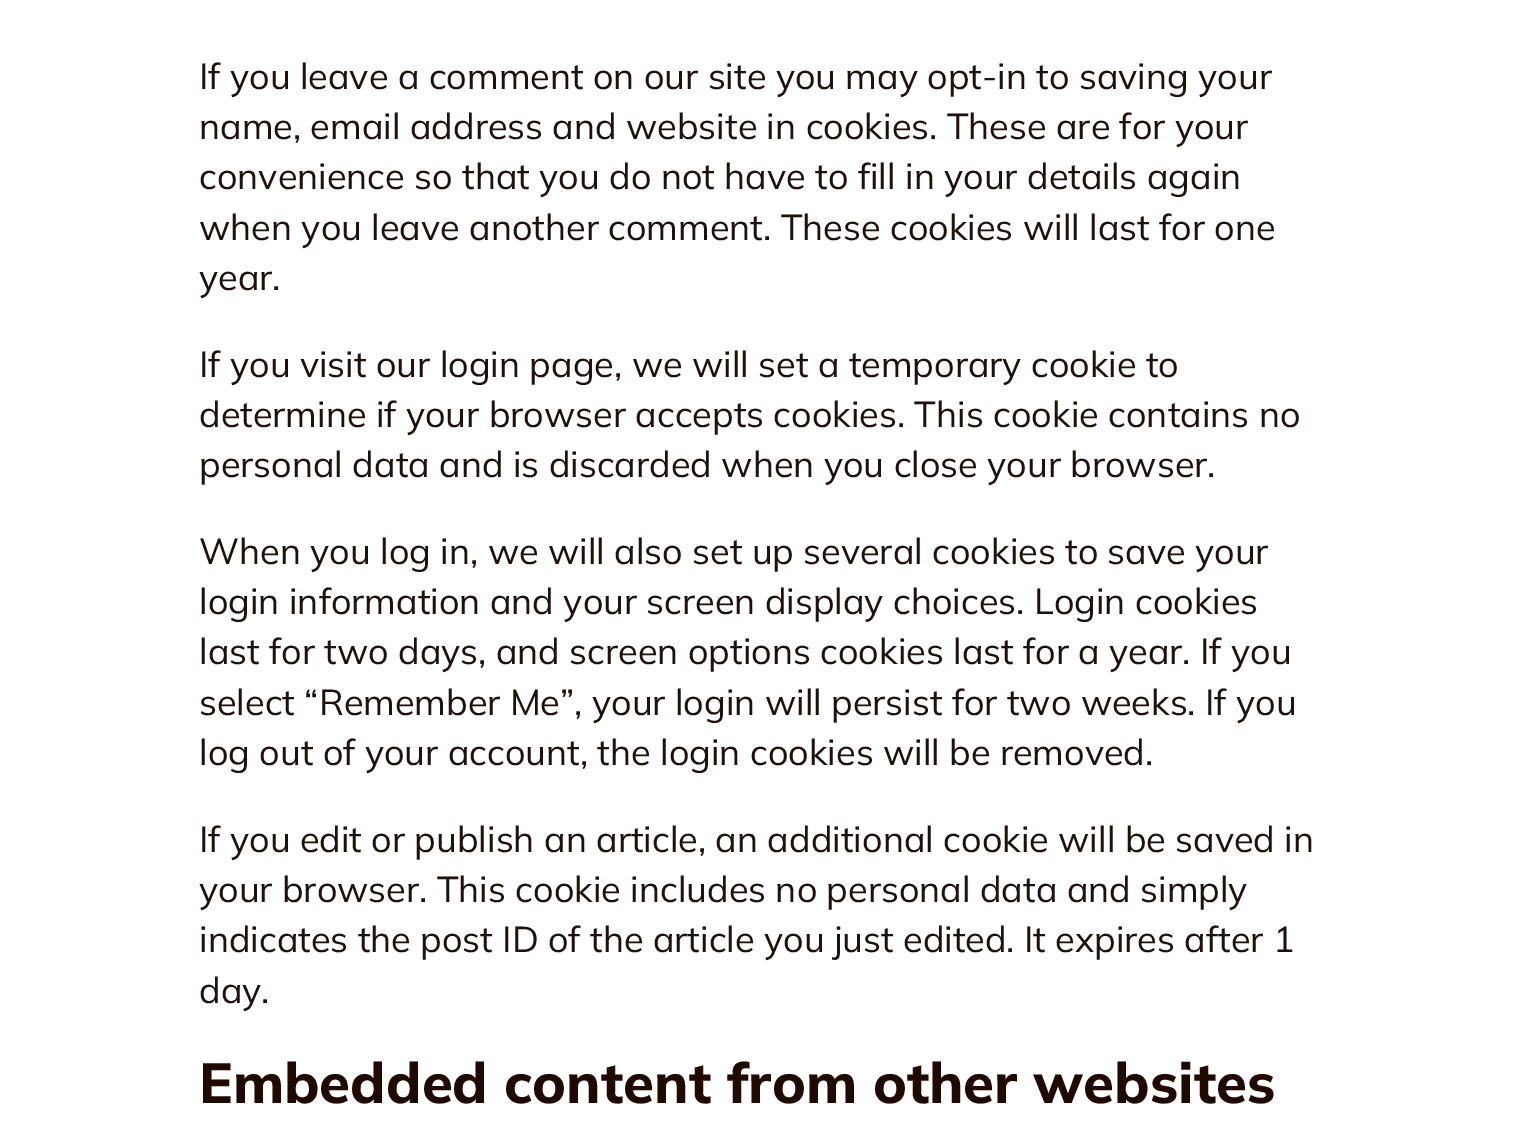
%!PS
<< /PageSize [1523 1139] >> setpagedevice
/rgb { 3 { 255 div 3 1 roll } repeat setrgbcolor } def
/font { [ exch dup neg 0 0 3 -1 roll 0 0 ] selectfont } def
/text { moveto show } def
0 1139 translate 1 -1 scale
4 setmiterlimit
255 255 255 rgb
0 0 1523 1139 rectfill
/Mulish-Regular 36 font
30 16 10 rgb
(If you leave a comment on our site you may opt-in to saving your) 199 89 text
(name, email address and website in cookies. These are for your) 199 139 text
(convenience so that you do not have to fill in your details again) 199 189 text
(when you leave another comment. These cookies will last for one) 199 240 text
(year.) 199 290 text
(If you visit our login page, we will set a temporary cookie to) 199 377 text
(determine if your browser accepts cookies. This cookie contains no) 199 427 text
(personal data and is discarded when you close your browser.) 199 477 text
(When you log in, we will also set up several cookies to save your) 199 564 text
(login information and your screen display choices. Login cookies) 199 614 text
(last for two days, and screen options cookies last for a year. If you) 199 664 text
(select “Remember Me”, your login will persist for two weeks. If you) 199 715 text
(log out of your account, the login cookies will be removed.) 199 765 text
(If you edit or publish an article, an additional cookie will be saved in) 199 852 text
(your browser. This cookie includes no personal data and simply) 199 902 text
(indicates the post ID of the article you just edited. It expires after 1) 199 952 text
(day.) 199 1003 text
/Mulish-ExtraBold 56.25 font
31 9 0 rgb
(Embedded content from other websites) 199 1103 text
showpage
